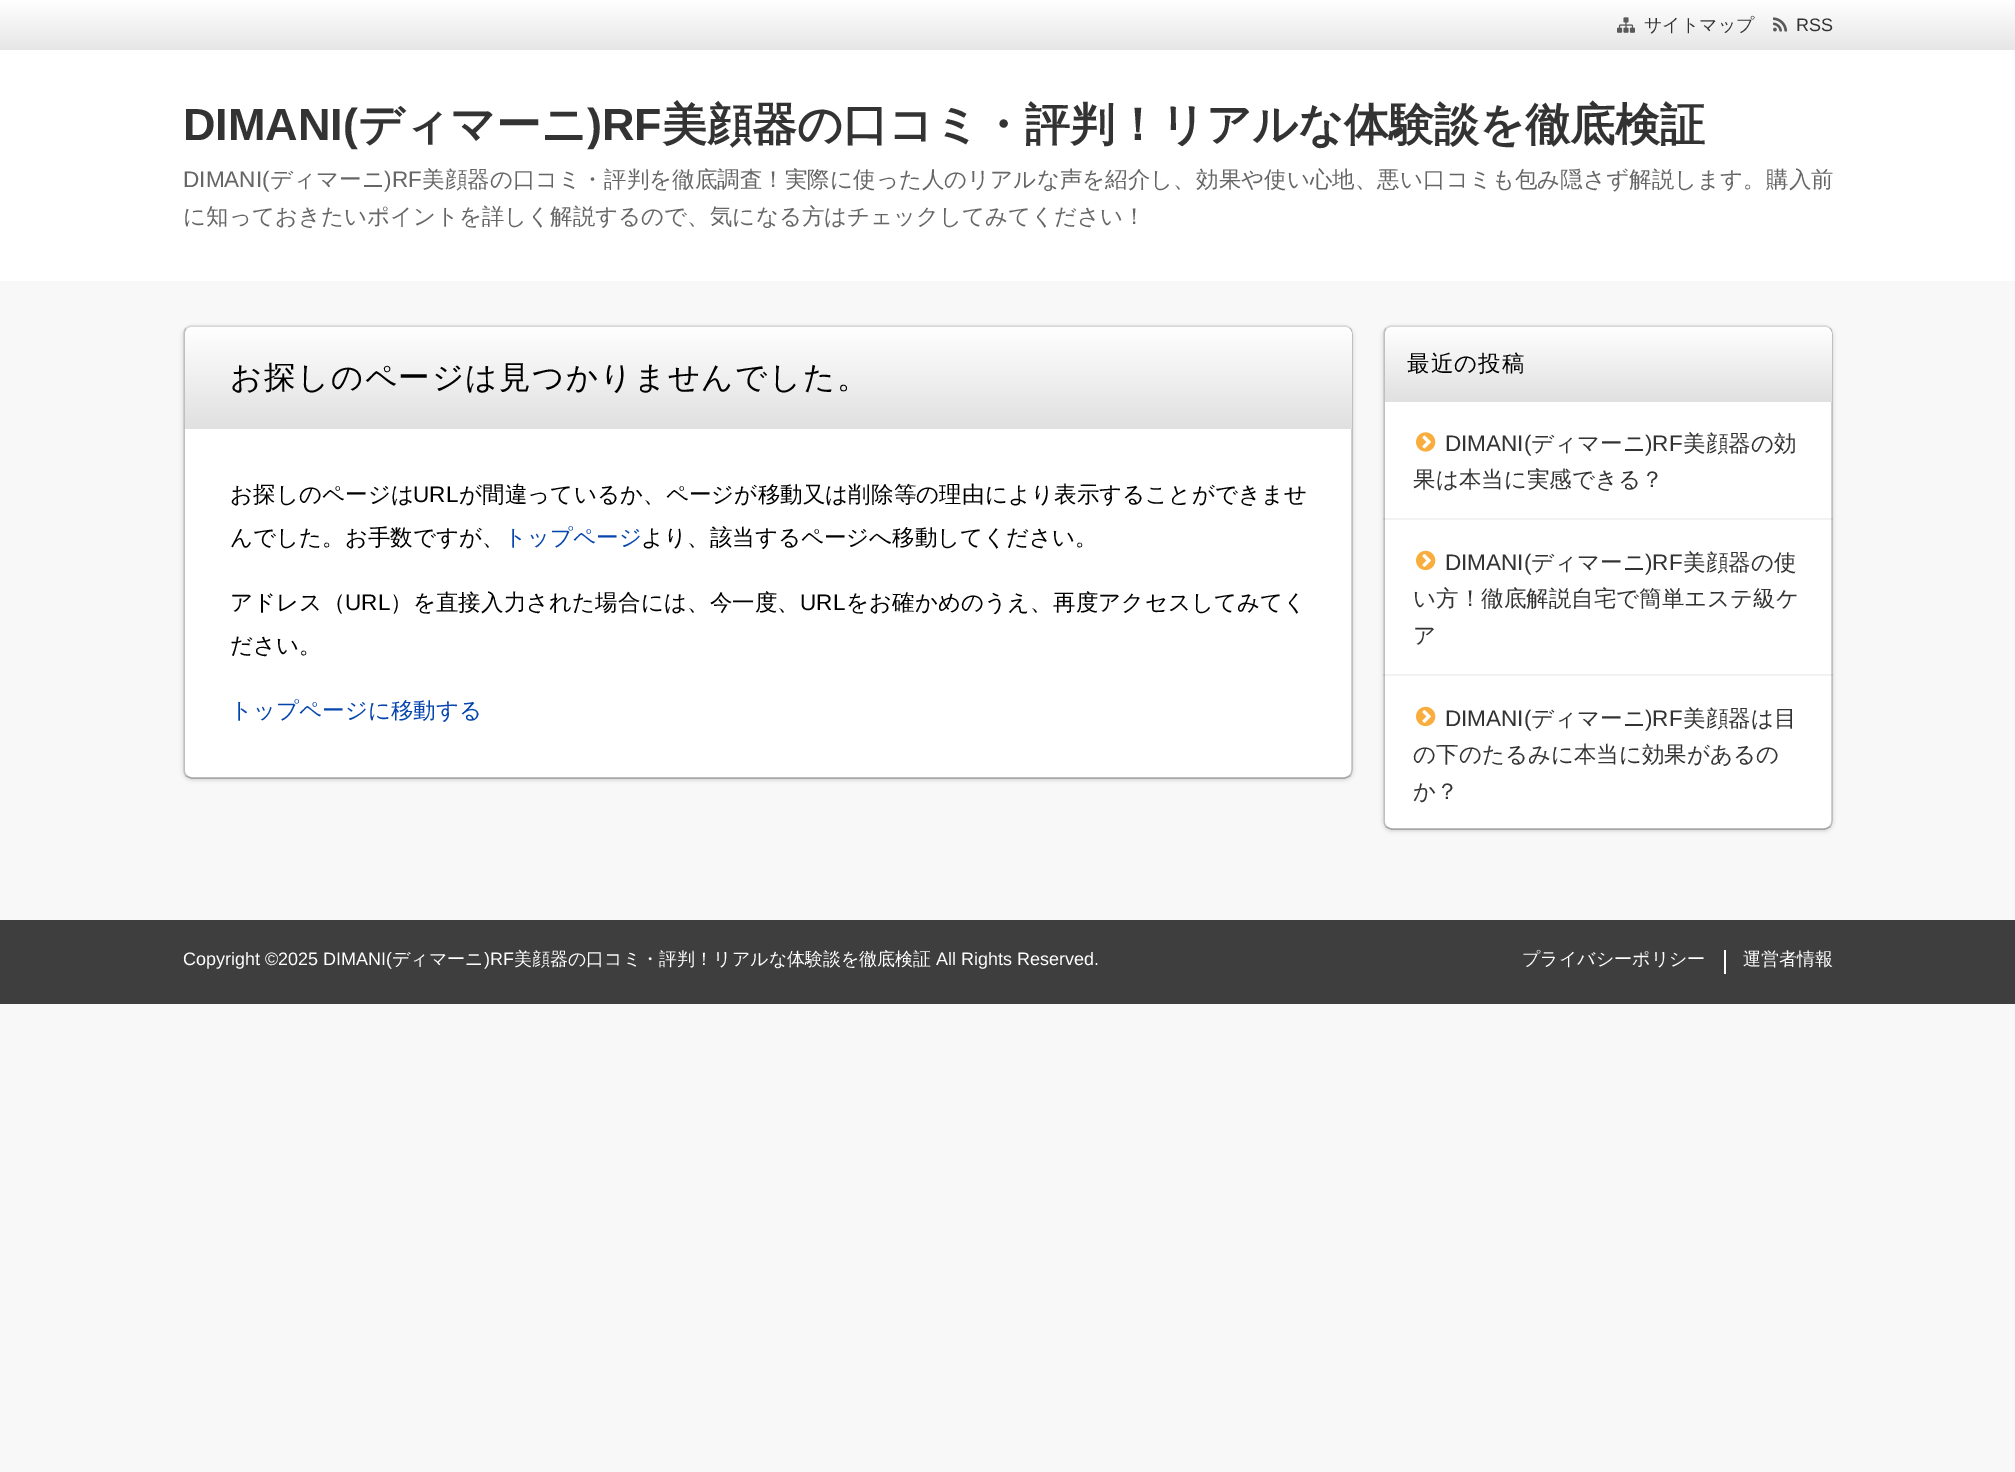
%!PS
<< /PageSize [2015 1472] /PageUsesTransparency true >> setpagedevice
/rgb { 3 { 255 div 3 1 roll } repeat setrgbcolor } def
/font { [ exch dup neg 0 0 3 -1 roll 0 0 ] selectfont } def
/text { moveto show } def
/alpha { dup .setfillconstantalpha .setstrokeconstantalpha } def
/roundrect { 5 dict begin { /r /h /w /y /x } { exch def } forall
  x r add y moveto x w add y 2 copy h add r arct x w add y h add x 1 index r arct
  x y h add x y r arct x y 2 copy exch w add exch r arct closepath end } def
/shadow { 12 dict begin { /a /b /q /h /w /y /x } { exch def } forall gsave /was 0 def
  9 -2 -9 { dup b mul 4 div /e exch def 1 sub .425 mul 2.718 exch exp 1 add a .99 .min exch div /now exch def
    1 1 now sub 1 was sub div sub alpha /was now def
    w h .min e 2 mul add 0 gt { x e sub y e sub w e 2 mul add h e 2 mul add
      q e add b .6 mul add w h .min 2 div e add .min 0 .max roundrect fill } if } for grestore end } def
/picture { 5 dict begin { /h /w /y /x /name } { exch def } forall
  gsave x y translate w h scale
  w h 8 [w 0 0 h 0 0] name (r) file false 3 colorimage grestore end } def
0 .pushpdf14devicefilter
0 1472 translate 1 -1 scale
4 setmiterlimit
248 248 248 rgb
0 0 2015 1472 rectfill
255 255 255 rgb
0 50 2015 231 rectfill
gsave 0 0 moveto 2015 0 rlineto 0 50 rlineto -2015 0 rlineto closepath clip newpath
<< /ShadingType 2 /ColorSpace /DeviceRGB /Coords [1008 0 1008 50] /Extend [true true] /Function << /FunctionType 2 /Domain [0 1] /C0 [1 1 1] /C1 [0.902 0.902 0.902] /N 1 >> >> shfill grestore
(img_01.rgb) 1617 17 18 16 picture
(img_02.rgb) 1773 17 15 15 picture
0 0 0 rgb
183 327 1170 453 9 2 0.15 shadow
255 255 255 rgb
183 326 1170 453 9 roundrect fill
217 217 217 rgb
1.5 setlinewidth
186 328.5 moveto 1.5 -1.5 4 -2.5 6 -2.5 rcurveto 1152 0 rlineto 2 0 4.5 1 6 2.5 rcurveto stroke
191 191 191 rgb
1350 328.5 moveto 1.5 1.5 2 4 2 6 rcurveto 0 435 rlineto 0 2 -0.5 4.5 -2 6 rcurveto stroke
166 166 166 rgb
1350 775.5 moveto -1.5 1.5 -4 2.5 -6 2.5 rcurveto -1152 0 rlineto -2 0 -4.5 -1 -6 -2.5 rcurveto stroke
191 191 191 rgb
186 775.5 moveto -1.5 -1.5 -2 -4 -2 -6 rcurveto 0 -435 rlineto 0 -2 0.5 -4.5 2 -6 rcurveto stroke
gsave 194 327 moveto 1149 0 rlineto 5 0 9 4 9 9 rcurveto 0 93 rlineto -1167 0 rlineto 0 -93 rlineto 0 -5 4 -9 9 -9 rcurveto closepath clip newpath
<< /ShadingType 2 /ColorSpace /DeviceRGB /Coords [768 327 768 429] /Extend [true true] /Function << /FunctionType 2 /Domain [0 1] /C0 [1 1 1] /C1 [0.878 0.878 0.878] /N 1 >> >> shfill grestore
0 0 0 rgb
1383 327 450 504 9 2 0.15 shadow
255 255 255 rgb
1383 326 450 504 9 roundrect fill
217 217 217 rgb
1386 328.5 moveto 1.5 -1.5 4 -2.5 6 -2.5 rcurveto 432 0 rlineto 2 0 4.5 1 6 2.5 rcurveto stroke
191 191 191 rgb
1830 328.5 moveto 1.5 1.5 2 4 2 6 rcurveto 0 486 rlineto 0 2 -0.5 4.5 -2 6 rcurveto stroke
166 166 166 rgb
1830 826.5 moveto -1.5 1.5 -4 2.5 -6 2.5 rcurveto -432 0 rlineto -2 0 -4.5 -1 -6 -2.5 rcurveto stroke
191 191 191 rgb
1386 826.5 moveto -1.5 -1.5 -2 -4 -2 -6 rcurveto 0 -486 rlineto 0 -2 0.5 -4.5 2 -6 rcurveto stroke
gsave 1394 327 moveto 429 0 rlineto 5 0 9 4 9 9 rcurveto 0 66 rlineto -447 0 rlineto 0 -66 rlineto 0 -5 4 -9 9 -9 rcurveto closepath clip newpath
<< /ShadingType 2 /ColorSpace /DeviceRGB /Coords [1608 327 1608 402] /Extend [true true] /Function << /FunctionType 2 /Domain [0 1] /C0 [1 1 1] /C1 [0.878 0.878 0.878] /N 1 >> >> shfill grestore
0.05 alpha
0 0 0 rgb
1383 518 450 2 rectfill
1 alpha
(img_03.rgb) 1416 432 20 20 picture
0.05 alpha
1383 674 450 2 rectfill
1 alpha
(img_04.rgb) 1416 550 20 21 picture
(img_04.rgb) 1416 706 20 21 picture
62 62 62 rgb
0 920 2015 84 rectfill
255 255 255 rgb
1724 950 2 24 rectfill
/WenQuanYiZenHei-Medium 18 font
51 51 51 rgb
(サイトマップ) 1644 31 text
/LiberationSans-Regular 18 font
(RSS) 1796 31 text
/LiberationSans-Bold 45 font
(DIMANI\() 183 140 text
/WenQuanYiZenHei-Bold 45 font
(ディマーニ) 358 140 text
/LiberationSans-Bold 45 font
(\)RF) 587 140 text
/WenQuanYiZenHei-Bold 45 font
(美顔器の口コミ・評判！リアルな体験談を徹底検証) 662 140 text
/LiberationSans-Regular 22.5 font
102 102 102 rgb
183 187 moveto 0.05 0 (DIMANI\() ashow
/WenQuanYiZenHei-Medium 22.5 font
270 187 moveto 0.05 0 (ディマーニ) ashow
/LiberationSans-Regular 22.5 font
384 187 moveto 0.05 0 (\)RF) ashow
/WenQuanYiZenHei-Medium 22.5 font
422 187 moveto 0.05 0 (美顔器の口コミ・評判を徹底調査！実際に使った人のリアルな声を紹介し、効果や使い心地、悪い口コミも包み隠さず解説します。購入前) ashow
(に知っておきたいポイントを詳しく解説するので、気になる方はチェックしてみてください！) 183 224 text
/WenQuanYiZenHei-Medium 31.5 font
0 0 0 rgb
230 388 moveto 1.6 0 (お探しのページは見つかりませんでした。) ashow
/WenQuanYiZenHei-Medium 22.5 font
230 502 moveto 0.1 0 (お探しのページは) ashow
/LiberationSans-Regular 22.5 font
413 502 moveto 0.1 0 (URL) ashow
/WenQuanYiZenHei-Medium 22.5 font
459 502 moveto 0.1 0 (が間違っているか、ページが移動又は削除等の理由により表示することができませ) ashow
(んでした。お手数ですが、) 230 545 text
6 69 173 rgb
(トップページ) 504 545 text
0 0 0 rgb
(より、該当するページへ移動してください。) 641 545 text
230 610 moveto 0.1 0 (アドレス（) ashow
/LiberationSans-Regular 22.5 font
345 610 moveto 0.1 0 (URL) ashow
/WenQuanYiZenHei-Medium 22.5 font
390 610 moveto 0.1 0 (）を直接入力された場合には、今一度、) ashow
/LiberationSans-Regular 22.5 font
800 610 moveto 0.1 0 (URL) ashow
/WenQuanYiZenHei-Medium 22.5 font
846 610 moveto 0.1 0 (をお確かめのうえ、再度アクセスしてみてく) ashow
(ださい。) 230 653 text
6 69 173 rgb
(トップページに移動する) 230 718 text
0 0 0 rgb
1407 371 moveto 1 0 (最近の投稿) ashow
/LiberationSans-Regular 22.5 font
51 51 51 rgb
(DIMANI\() 1445 451 text
/WenQuanYiZenHei-Medium 22.5 font
(ディマーニ) 1531 451 text
/LiberationSans-Regular 22.5 font
(\)RF) 1645 451 text
/WenQuanYiZenHei-Medium 22.5 font
(美顔器の効) 1683 451 text
(果は本当に実感できる？) 1413 487 text
/LiberationSans-Regular 22.5 font
(DIMANI\() 1445 570 text
/WenQuanYiZenHei-Medium 22.5 font
(ディマーニ) 1531 570 text
/LiberationSans-Regular 22.5 font
(\)RF) 1645 570 text
/WenQuanYiZenHei-Medium 22.5 font
(美顔器の使) 1683 570 text
(い方！徹底解説自宅で簡単エステ級ケ) 1413 606 text
(ア) 1413 643 text
/LiberationSans-Regular 22.5 font
(DIMANI\() 1445 726 text
/WenQuanYiZenHei-Medium 22.5 font
(ディマーニ) 1531 726 text
/LiberationSans-Regular 22.5 font
(\)RF) 1645 726 text
/WenQuanYiZenHei-Medium 22.5 font
(美顔器は目) 1683 726 text
(の下のたるみに本当に効果があるの) 1413 762 text
(か？) 1413 799 text
/LiberationSans-Regular 18 font
255 255 255 rgb
(Copyright ©2025 DIMANI\() 183 965 text
/WenQuanYiZenHei-Medium 18 font
(ディマーニ) 392 965 text
/LiberationSans-Regular 18 font
(\)RF) 484 965 text
/WenQuanYiZenHei-Medium 18 font
(美顔器の口コミ・評判！リアルな体験談を徹底検証) 514 965 text
/LiberationSans-Regular 18 font
(All Rights Reserved.) 936 965 text
/WenQuanYiZenHei-Medium 18 font
(プライバシーポリシー) 1522 965 text
(運営者情報) 1743 965 text
.poppdf14devicefilter showpage
